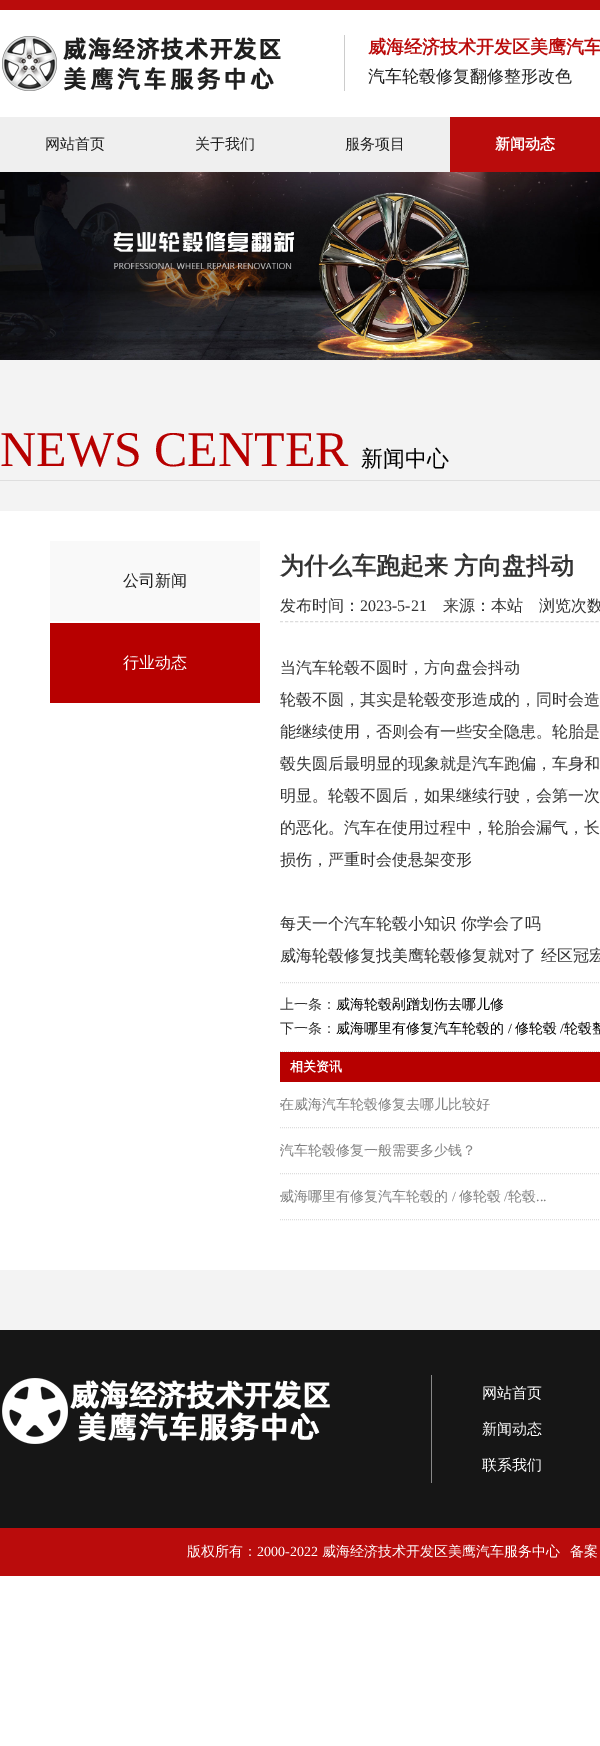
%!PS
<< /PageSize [600 1746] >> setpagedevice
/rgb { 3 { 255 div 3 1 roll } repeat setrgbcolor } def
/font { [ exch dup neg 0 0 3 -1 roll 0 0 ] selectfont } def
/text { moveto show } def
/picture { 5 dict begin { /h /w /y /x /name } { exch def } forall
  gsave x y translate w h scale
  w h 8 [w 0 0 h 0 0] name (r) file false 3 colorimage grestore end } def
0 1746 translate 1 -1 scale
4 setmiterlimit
255 255 255 rgb
0 0 600 1746 rectfill
186 12 12 rgb
0 0 600 10 rectfill
(img_01.rgb) 2 35 343 56 picture
239 239 239 rgb
0 117 450 55 rectfill
186 12 12 rgb
450 117 150 55 rectfill
(img_02.rgb) 0 172 600 188 picture
243 243 243 rgb
0 360 600 970 rectfill
222 222 222 rgb
0 480 600 1 rectfill
255 255 255 rgb
0 511 600 759 rectfill
249 249 249 rgb
50 541 210 80 rectfill
183 0 0 rgb
50 623 210 80 rectfill
221 221 221 rgb
[3 2.01] 0 setdash
280 621.5 moveto 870 0 rlineto stroke
[1 1] 0 setdash
280 982.5 moveto 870 0 rlineto stroke
280 1051.5 moveto 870 0 rlineto stroke
183 0 0 rgb
280 1052 320 30 rectfill
170 170 170 rgb
280 1103 2 2 rectfill
221 221 221 rgb
280 1127.5 moveto 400 0 rlineto stroke
170 170 170 rgb
280 1149 2 2 rectfill
221 221 221 rgb
280 1173.5 moveto 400 0 rlineto stroke
170 170 170 rgb
280 1195 2 2 rectfill
221 221 221 rgb
280 1219.5 moveto 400 0 rlineto stroke
22 22 22 rgb
0 1330 600 198 rectfill
(img_03.rgb) 2 1378 328 66 picture
136 136 136 rgb
431 1375 1 108 rectfill
186 12 12 rgb
0 1528 600 48 rectfill
/WenQuanYiZenHei-Bold 18 font
(威海经济技术开发区美鹰汽车) 368 53 text
/WenQuanYiZenHei-Medium 17 font
32 32 32 rgb
(汽车轮毂修复翻修整形改色) 368 82 text
/WenQuanYiZenHei-Medium 15 font
(网站首页) 45 149 text
(关于我们) 195 149 text
(服务项目) 345 149 text
/WenQuanYiZenHei-Bold 15 font
255 255 255 rgb
(新闻动态) 495 149 text
/LiberationSerif-Regular 50 font
183 0 0 rgb
(NEWS CENTER) 0 466 text
/WenQuanYiZenHei-Medium 22 font
0 0 0 rgb
(新闻中心) 361 466 text
/WenQuanYiZenHei-Medium 16 font
32 32 32 rgb
(公司新闻) 123 586 text
255 255 255 rgb
(行业动态) 123 668 text
/WenQuanYiZenHei-Bold 24 font
51 51 51 rgb
280 574 moveto -1 0 32 (为什么车跑起来 方向盘抖动) widthshow
/WenQuanYiZenHei-Medium 16 font
(发布时间：) 280 611 text
/LiberationSerif-Regular 16 font
(2023-5-21) 360 611 text
/WenQuanYiZenHei-Medium 16 font
(来源：本站) 443 611 text
(浏览次数) 539 611 text
(当汽车轮毂不圆时，方向盘会抖动) 280 673 text
(轮毂不圆，其实是轮毂变形造成的，同时会造) 280 705 text
(能继续使用，否则会有一些安全隐患。轮胎是) 280 737 text
(毂失圆后最明显的现象就是汽车跑偏，车身和) 280 769 text
(明显。轮毂不圆后，如果继续行驶，会第一次) 280 801 text
(的恶化。汽车在使用过程中，轮胎会漏气，长) 280 833 text
(损伤，严重时会使悬架变形) 280 865 text
(每天一个汽车轮毂小知识 你学会了吗) 280 929 text
(威海轮毂修复找美鹰轮毂修复就对了 经区冠宏) 280 961 text
/WenQuanYiZenHei-Medium 14 font
(上一条：) 280 1009 text
0 0 0 rgb
(威海轮毂剐蹭划伤去哪儿修) 336 1009 text
51 51 51 rgb
(下一条：) 280 1033 text
0 0 0 rgb
(威海哪里有修复汽车轮毂的) 336 1033 text
/LiberationSerif-Regular 14 font
(/) 508 1033 text
/WenQuanYiZenHei-Medium 14 font
(修轮毂) 515 1033 text
/LiberationSerif-Regular 14 font
(/) 560 1033 text
/WenQuanYiZenHei-Medium 14 font
(轮毂整) 564 1033 text
/WenQuanYiZenHei-Bold 13 font
255 255 255 rgb
(相关资讯) 290 1071 text
/WenQuanYiZenHei-Medium 14 font
128 128 128 rgb
(在威海汽车轮毂修复去哪儿比较好) 280 1109 text
(汽车轮毂修复一般需要多少钱？) 280 1155 text
(威海哪里有修复汽车轮毂的) 280 1201 text
/LiberationSerif-Regular 14 font
(/) 452 1201 text
/WenQuanYiZenHei-Medium 14 font
(修轮毂) 459 1201 text
/LiberationSerif-Regular 14 font
(/) 504 1201 text
/WenQuanYiZenHei-Medium 14 font
(轮毂) 508 1201 text
/LiberationSerif-Regular 14 font
(...) 536 1201 text
/WenQuanYiZenHei-Medium 15 font
255 255 255 rgb
(网站首页) 482 1398 text
(新闻动态) 482 1434 text
(联系我们) 482 1470 text
/WenQuanYiZenHei-Medium 14 font
(版权所有：) 187 1556 text
/LiberationSerif-Regular 14 font
(2000-2022) 257 1556 text
/WenQuanYiZenHei-Medium 14 font
(威海经济技术开发区美鹰汽车服务中心) 322 1556 text
(备案) 570 1556 text
showpage
